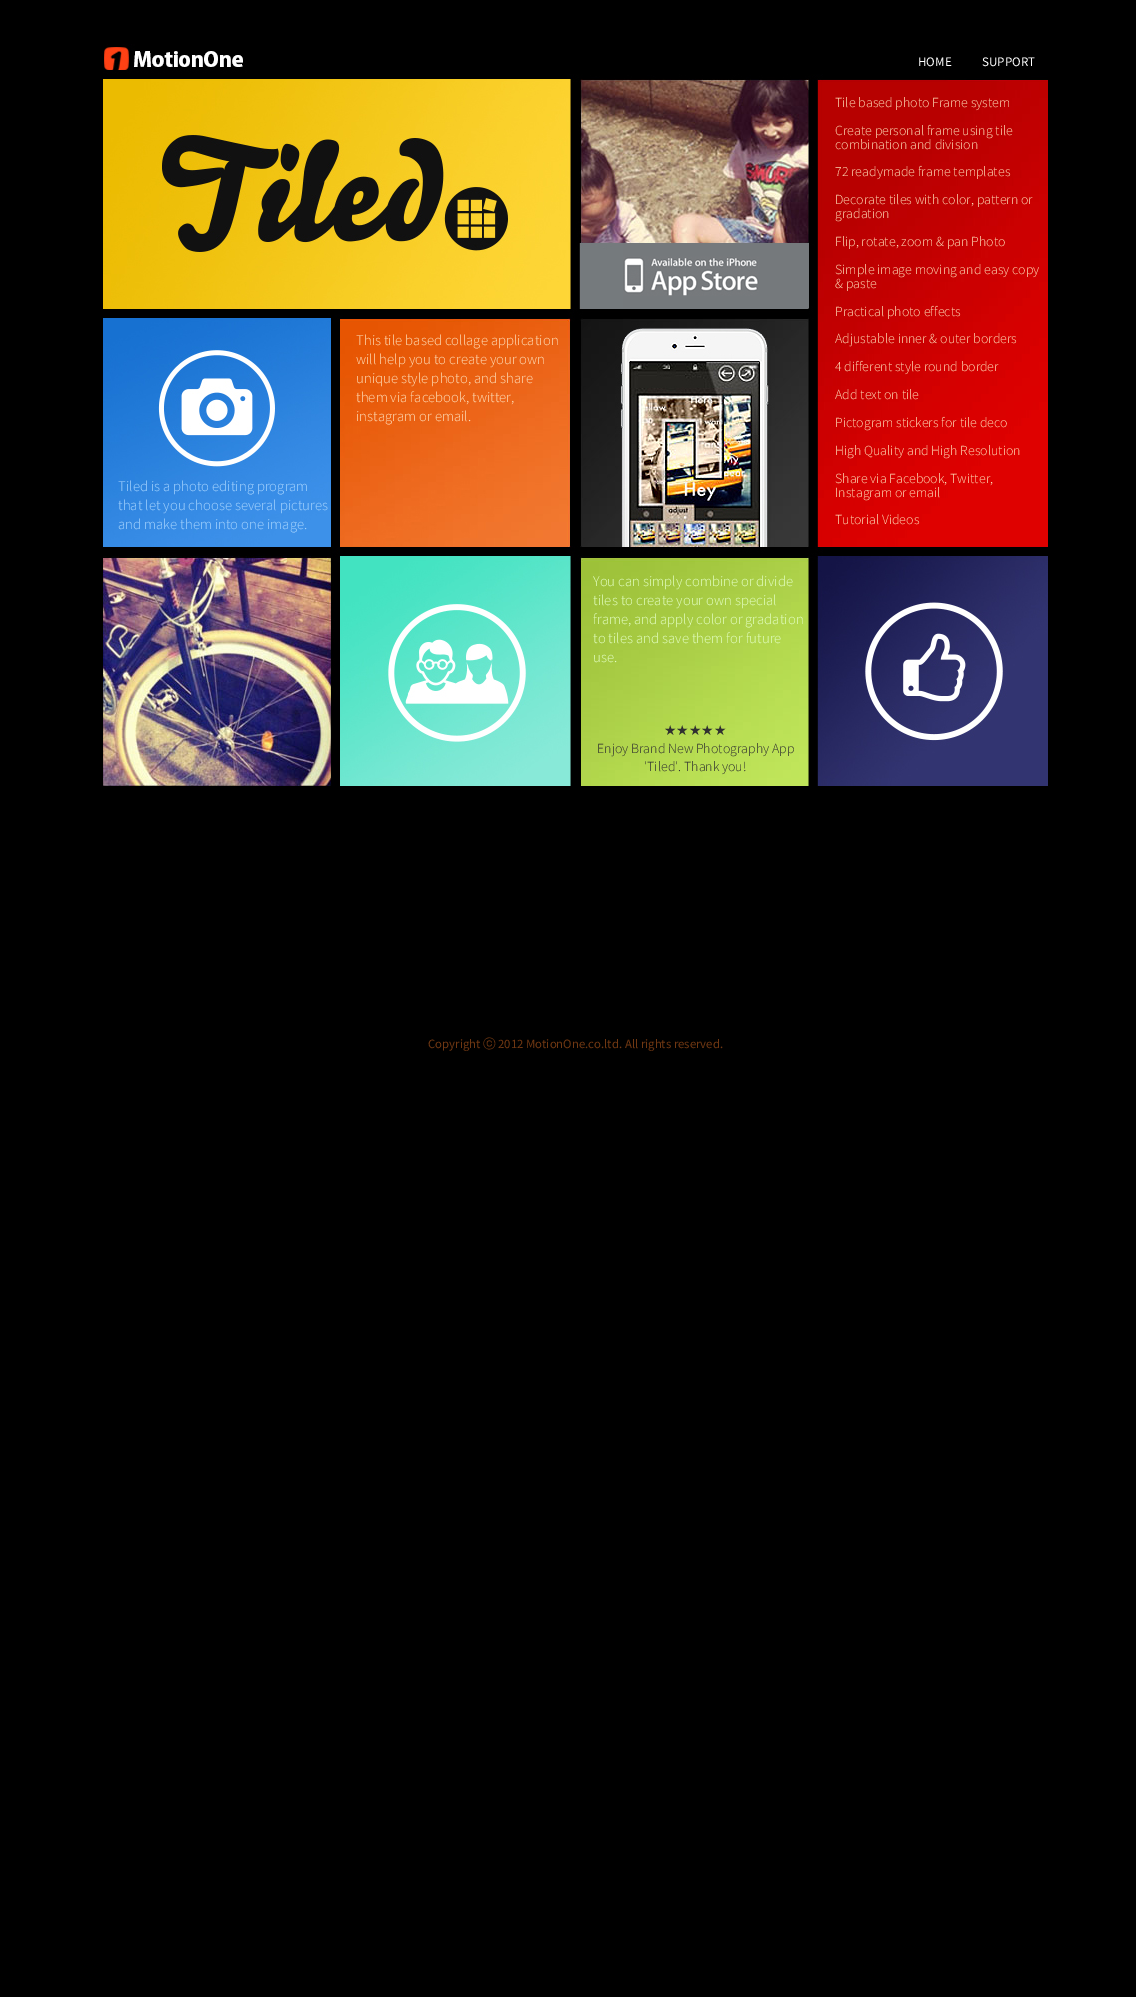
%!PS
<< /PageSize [1136 1997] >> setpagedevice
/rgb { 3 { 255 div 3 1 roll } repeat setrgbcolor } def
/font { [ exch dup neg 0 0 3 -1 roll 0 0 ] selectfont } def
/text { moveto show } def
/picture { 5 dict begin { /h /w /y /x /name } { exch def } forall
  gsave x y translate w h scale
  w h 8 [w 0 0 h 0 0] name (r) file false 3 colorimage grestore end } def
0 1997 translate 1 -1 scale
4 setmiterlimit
0 0 0 rgb
0 0 1136 1997 rectfill
(img_01.rgb) 103 44 945 742 picture
(img_02.rgb) 623 243 186 65 picture
/SourceSansPro-Regular 13 font
255 255 255 rgb
(HOME) 918 66 text
(SUPPORT) 982 66 text
/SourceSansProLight-Light 13.9 font
255 221 183 rgb
(Tile based photo Frame system) 835 107 text
(Create personal frame using tile) 835 135 text
(combination and division) 835 149 text
(72 readymade frame templates) 835 176 text
(Decorate tiles with color, pattern or) 835 204 text
(gradation) 835 218 text
(Flip, rotate, zoom & pan Photo) 835 246 text
(Simple image moving and easy copy) 835 274 text
(& paste) 835 288 text
(Practical photo effects) 835 316 text
(Adjustable inner & outer borders) 835 343 text
(4 different style round border) 835 371 text
(Add text on tile) 835 399 text
(Pictogram stickers for tile deco) 835 427 text
(High Quality and High Resolution) 835 455 text
(Share via Facebook, Twitter,) 835 483 text
(Instagram or email) 835 497 text
(Tutorial Videos) 835 524 text
/SourceSansProLight-Light 14.75 font
(This tile based collage application) 356 345 text
(will help you to create your own) 356 364 text
(unique style photo, and share) 356 383 text
(them via facebook, twitter,) 356 402 text
(instagram or email.) 356 421 text
166 212 255 rgb
(Tiled is a photo editing program) 118 491 text
(that let you choose several pictures) 118 510 text
(and make them into one image.) 118 529 text
227 255 194 rgb
(You can simply combine or divide) 593 586 text
(tiles to create your own special) 593 605 text
(frame, and apply color or gradation) 593 624 text
(to tiles and save them for future) 593 643 text
(use.) 593 662 text
/DejaVuSans-Regular 13.9 font
48 48 48 rgb
(★★★★★) 664 735 text
/SourceSansProLight-Light 13.9 font
(Enjoy Brand New Photography App) 597 753 text
('Tiled'. Thank you!) 644 771 text
/SourceSansPro-Regular 12.75 font
111 55 18 rgb
(Copyright) 428 1048 text
/WenQuanYiZenHei-Medium 12.75 font
(ⓒ) 483 1048 text
/SourceSansPro-Regular 12.75 font
(2012 MotionOne.co.ltd. All rights reserved.) 498 1048 text
showpage
